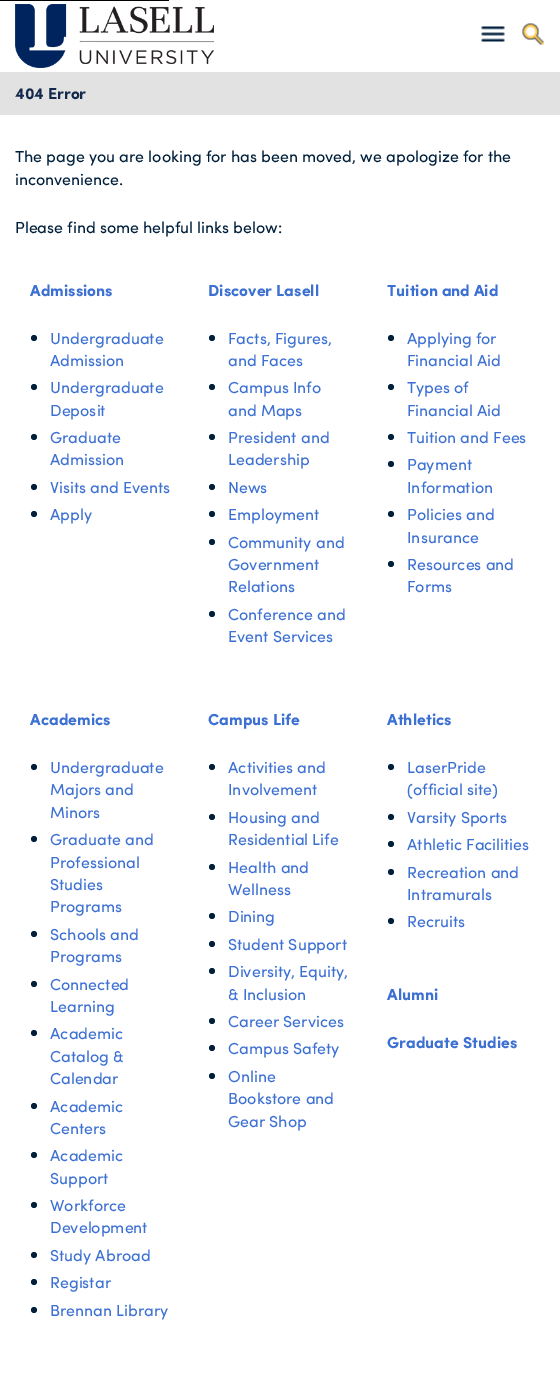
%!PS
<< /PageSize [560 1388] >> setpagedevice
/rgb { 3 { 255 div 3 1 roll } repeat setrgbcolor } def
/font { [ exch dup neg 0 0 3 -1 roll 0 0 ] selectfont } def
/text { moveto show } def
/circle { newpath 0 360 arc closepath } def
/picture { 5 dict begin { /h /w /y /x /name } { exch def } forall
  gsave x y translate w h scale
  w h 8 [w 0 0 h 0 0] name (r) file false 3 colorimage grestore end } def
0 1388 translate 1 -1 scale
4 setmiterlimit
255 255 255 rgb
0 0 560 1388 rectfill
0 0 0 rgb
0 0 169 1 rectfill
(img_01.rgb) 15 4 199 64 picture
(img_02.rgb) 481 26 24 16 picture
(img_03.rgb) 522 23 22 22 picture
226 226 226 rgb
0 72 560 43 rectfill
0 31 59 rgb
34 338 3 circle fill
34 387 3 circle fill
34 437 3 circle fill
34 487 3 circle fill
34 514 3 circle fill
212 338 3 circle fill
212 387 3 circle fill
212 437 3 circle fill
212 487 3 circle fill
212 514 3 circle fill
212 542 3 circle fill
212 614 3 circle fill
391 338 3 circle fill
391 387 3 circle fill
391 437 3 circle fill
391 464 3 circle fill
391 514 3 circle fill
391 564 3 circle fill
34 767 3 circle fill
34 839 3 circle fill
34 934 3 circle fill
34 984 3 circle fill
34 1033 3 circle fill
34 1106 3 circle fill
34 1155 3 circle fill
34 1205 3 circle fill
34 1255 3 circle fill
34 1282 3 circle fill
34 1310 3 circle fill
212 767 3 circle fill
212 817 3 circle fill
212 867 3 circle fill
212 916 3 circle fill
212 944 3 circle fill
212 971 3 circle fill
212 1021 3 circle fill
212 1048 3 circle fill
212 1076 3 circle fill
391 767 3 circle fill
391 817 3 circle fill
391 844 3 circle fill
391 872 3 circle fill
391 921 3 circle fill
/Sofia-Bold 16 font
19 41 75 rgb
(404 Error) 15 99 text
/Sofia-Regular 16 font
0 31 59 rgb
(The page you are looking for has been moved, we apologize for the) 15 162 text
(inconvenience.) 15 185 text
(Please find some helpful links below:) 15 233 text
/Sofia-Bold 16 font
60 112 211 rgb
(Admissions) 30 296 text
/Sofia-Regular 16 font
(Undergraduate) 50 344 text
(Admission) 50 366 text
(Undergraduate) 50 393 text
(Deposit) 50 416 text
(Graduate) 50 443 text
(Admission) 50 465 text
(Visits and Events) 50 493 text
(Apply) 50 520 text
/Sofia-Bold 16 font
(Discover Lasell) 208 296 text
/Sofia-Regular 16 font
(Facts, Figures,) 228 344 text
(and Faces) 228 366 text
(Campus Info) 228 393 text
(and Maps) 228 416 text
(President and) 228 443 text
(Leadership) 228 465 text
(News) 228 493 text
(Employment) 228 520 text
(Community and) 228 548 text
(Government) 228 570 text
(Relations) 228 592 text
(Conference and) 228 620 text
(Event Services) 228 642 text
/Sofia-Bold 16 font
(Tuition and Aid) 387 296 text
/Sofia-Regular 16 font
(Applying for) 407 344 text
(Financial Aid) 407 366 text
(Types of) 407 393 text
(Financial Aid) 407 416 text
(Tuition and Fees) 407 443 text
(Payment) 407 470 text
(Information) 407 493 text
(Policies and) 407 520 text
(Insurance) 407 543 text
(Resources and) 407 570 text
(Forms) 407 592 text
/Sofia-Bold 16 font
(Academics) 30 725 text
/Sofia-Regular 16 font
(Undergraduate) 50 773 text
(Majors and) 50 795 text
(Minors) 50 818 text
(Graduate and) 50 845 text
(Professional) 50 868 text
(Studies) 50 890 text
(Programs) 50 912 text
(Schools and) 50 940 text
(Programs) 50 962 text
(Connected) 50 990 text
(Learning) 50 1012 text
(Academic) 50 1039 text
(Catalog &) 50 1062 text
(Calendar) 50 1084 text
(Academic) 50 1112 text
(Centers) 50 1134 text
(Academic) 50 1161 text
(Support) 50 1184 text
(Workforce) 50 1211 text
(Development) 50 1233 text
(Study Abroad) 50 1261 text
(Registar) 50 1288 text
(Brennan Library) 50 1316 text
/Sofia-Bold 16 font
(Campus Life) 208 725 text
/Sofia-Regular 16 font
(Activities and) 228 773 text
(Involvement) 228 795 text
(Housing and) 228 823 text
(Residential Life) 228 845 text
(Health and) 228 873 text
(Wellness) 228 895 text
(Dining) 228 922 text
(Student Support) 228 950 text
(Diversity, Equity,) 228 977 text
(& Inclusion) 228 1000 text
(Career Services) 228 1027 text
(Campus Safety) 228 1054 text
(Online) 228 1082 text
(Bookstore and) 228 1104 text
(Gear Shop) 228 1127 text
/Sofia-Bold 16 font
(Athletics) 387 725 text
/Sofia-Regular 16 font
(LaserPride) 407 773 text
(\(official site\)) 407 795 text
(Varsity Sports) 407 823 text
(Athletic Facilities) 407 850 text
(Recreation and) 407 878 text
(Intramurals) 407 900 text
(Recruits) 407 927 text
/Sofia-Bold 16 font
(Alumni) 387 1000 text
(Graduate Studies) 387 1048 text
showpage
